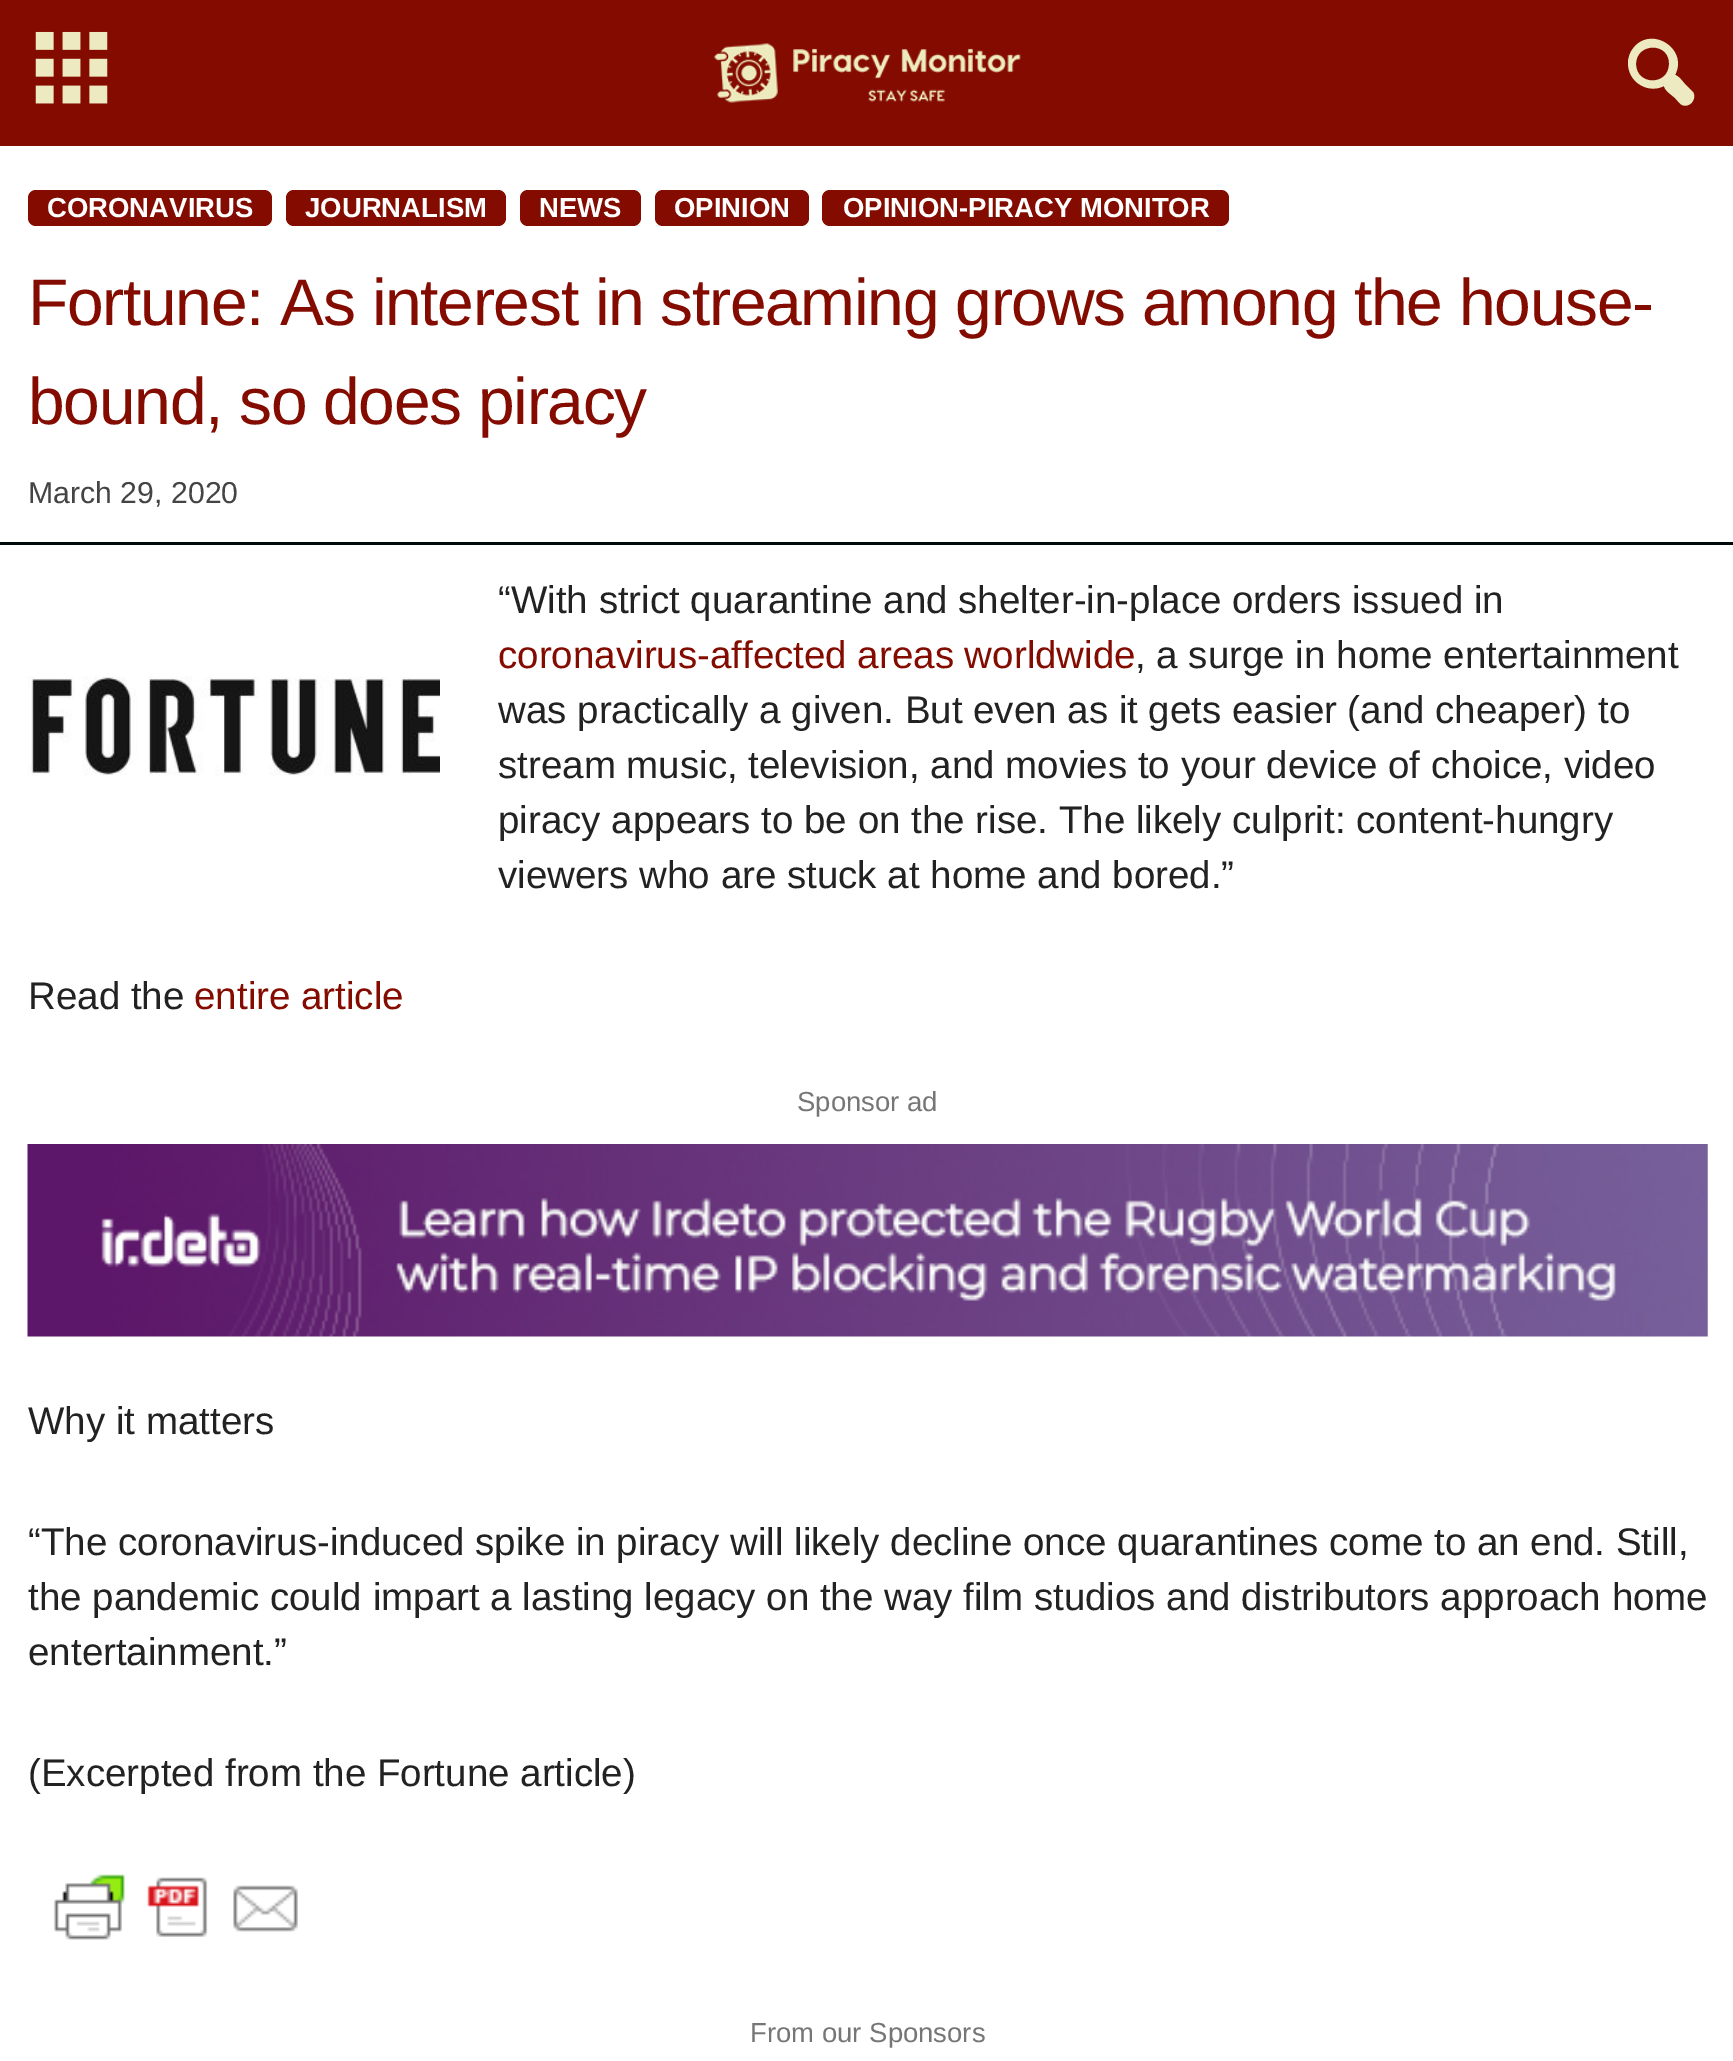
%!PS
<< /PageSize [1733 2061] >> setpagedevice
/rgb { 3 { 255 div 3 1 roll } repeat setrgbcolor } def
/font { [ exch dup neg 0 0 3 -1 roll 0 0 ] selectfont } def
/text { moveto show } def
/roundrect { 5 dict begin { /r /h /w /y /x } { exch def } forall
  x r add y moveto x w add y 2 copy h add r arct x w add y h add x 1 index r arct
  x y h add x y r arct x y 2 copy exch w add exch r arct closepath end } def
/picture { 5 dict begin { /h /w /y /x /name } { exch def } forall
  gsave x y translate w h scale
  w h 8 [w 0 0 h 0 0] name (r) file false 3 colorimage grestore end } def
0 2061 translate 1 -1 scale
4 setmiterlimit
255 255 255 rgb
0 0 1733 2061 rectfill
132 11 0 rgb
0 0 1733 146 rectfill
(img_01.rgb) 35 31 73 73 picture
(img_02.rgb) 713 43 308 60 picture
237 233 192 rgb
1629 70 moveto -2 -7 -1 -14 3 -20 rcurveto 17 -26 57 -2 43 25 rcurveto 4 1 7 6 10 9 rcurveto 8 8 rlineto 4 7 -3 16 -11 13 rcurveto -3 -2 -5 -5 -7 -7 rcurveto -3 -3 -10 -7 -11 -12 rcurveto -14 7 -31 -1 -35 -16 rcurveto closepath 1636 64 moveto 0 22 33 22 33 0 rcurveto 1 -22 -33 -22 -33 0 rcurveto closepath fill
132 11 0 rgb
28 190 244 36 8 roundrect fill
286 190 220 36 8 roundrect fill
520 190 121 36 8 roundrect fill
655 190 154 36 8 roundrect fill
822 190 407 36 8 roundrect fill
0 9 12 rgb
0 542 1733 3 rectfill
(img_03.rgb) 27 676 413 100 picture
(img_04.rgb) 27 1144 1681 193 picture
(img_05.rgb) 54 1874 244 66 picture
/LiberationSans-Bold 27.5 font
255 255 255 rgb
(CORONAVIRUS) 47 217 text
(JOURNALISM) 305 217 text
(NEWS) 539 217 text
(OPINION) 674 217 text
(OPINION-PIRACY MONITOR) 843 217 text
/LiberationSans-Regular 66 font
132 11 0 rgb
28 325 moveto -1.32 0 (Fortune: As interest in streaming grows among the house-) ashow
28 424 moveto -1.32 0 (bound, so does piracy) ashow
/LiberationSans-Regular 30.25 font
68 68 68 rgb
(March 29, 2020) 28 503 text
/LiberationSans-Regular 38.5 font
34 34 34 rgb
(“With strict quarantine and shelter-in-place orders issued in) 498 613 text
132 11 0 rgb
(coronavirus-affected areas worldwide) 498 668 text
34 34 34 rgb
(, a surge in home entertainment) 1135 668 text
(was practically a given. But even as it gets easier \(and cheaper\) to) 498 723 text
(stream music, television, and movies to your device of choice, video) 498 778 text
(piracy appears to be on the rise. The likely culprit: content-hungry) 498 833 text
(viewers who are stuck at home and bored.”) 498 888 text
(Read the) 28 1009 text
132 11 0 rgb
(entire article) 194 1009 text
/LiberationSans-Regular 27.5 font
118 118 118 rgb
(Sponsor ad) 797 1111 text
/LiberationSans-Regular 38.5 font
34 34 34 rgb
(Why it matters) 28 1434 text
(“The coronavirus-induced spike in piracy will likely decline once quarantines come to an end. Still,) 28 1555 text
(the pandemic could impart a lasting legacy on the way film studios and distributors approach home) 28 1610 text
(entertainment.”) 28 1665 text
(\(Excerpted from the Fortune article\)) 28 1786 text
/LiberationSans-Regular 27.5 font
118 118 118 rgb
(From our Sponsors) 750 2042 text
showpage
